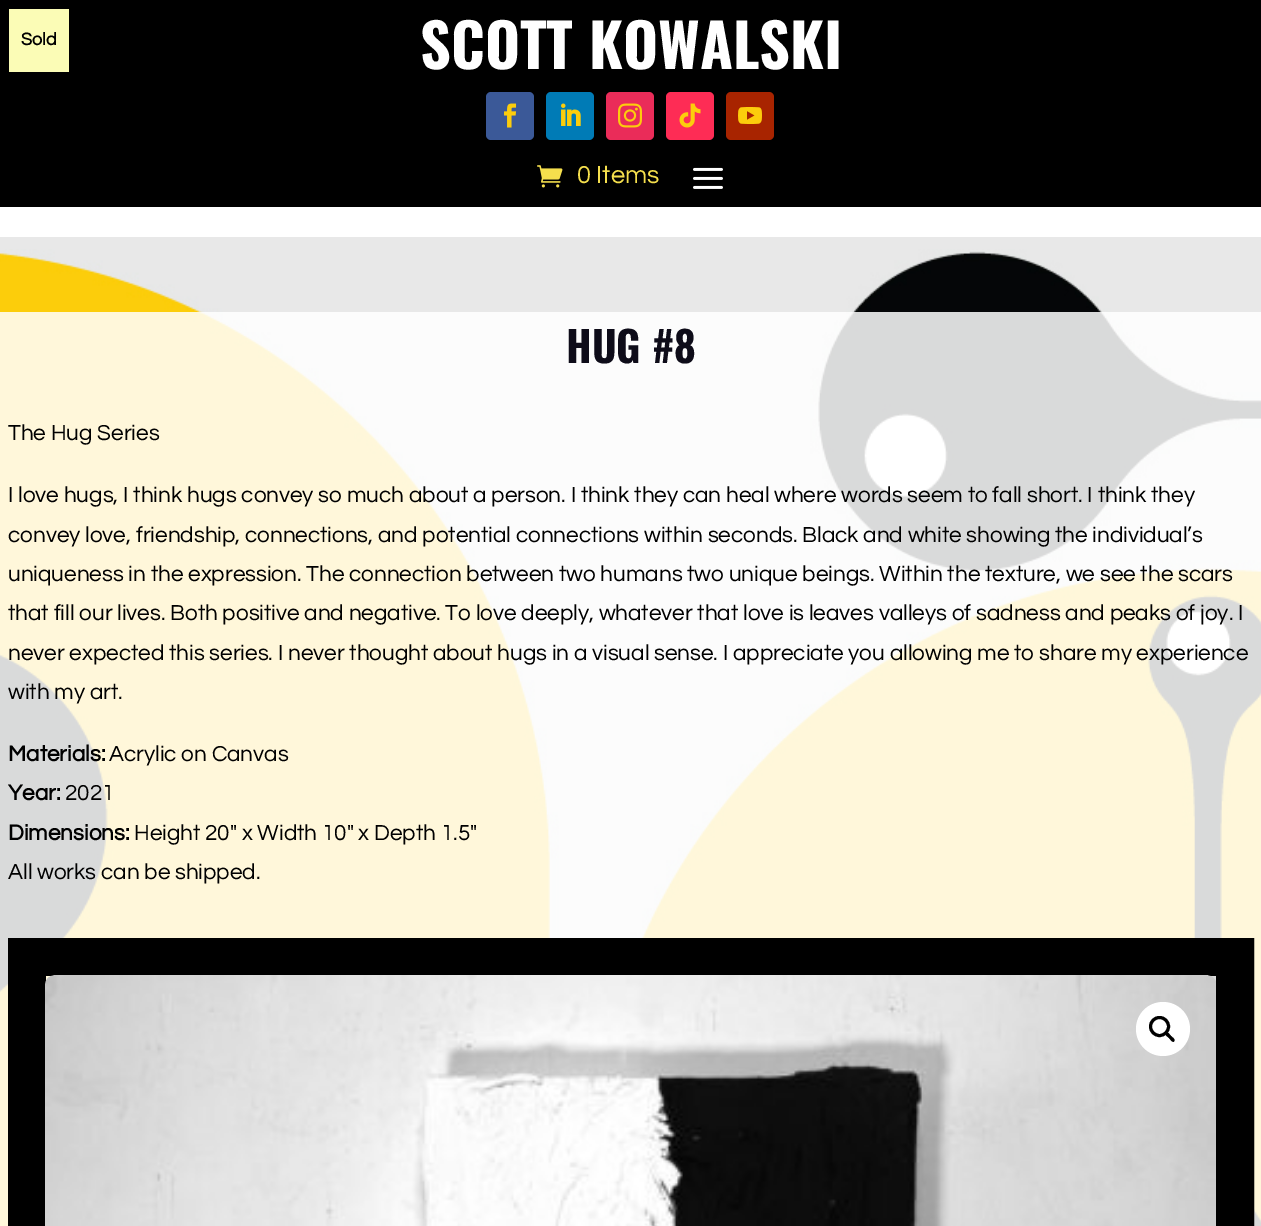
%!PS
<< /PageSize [1261 1226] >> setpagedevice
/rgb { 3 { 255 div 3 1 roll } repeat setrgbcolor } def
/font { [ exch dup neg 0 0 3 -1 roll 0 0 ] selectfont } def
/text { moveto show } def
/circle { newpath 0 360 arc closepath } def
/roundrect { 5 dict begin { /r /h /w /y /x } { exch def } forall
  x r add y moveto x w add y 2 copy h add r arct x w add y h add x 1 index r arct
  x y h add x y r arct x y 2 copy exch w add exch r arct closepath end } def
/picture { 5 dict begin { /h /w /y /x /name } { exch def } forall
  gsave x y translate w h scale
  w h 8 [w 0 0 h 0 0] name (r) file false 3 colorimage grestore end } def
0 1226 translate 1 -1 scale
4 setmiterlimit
255 255 255 rgb
0 0 1261 1226 rectfill
0 0 0 rgb
0 0 1261 207 rectfill
59 89 152 rgb
486 92 48 48 5 roundrect fill
(img_01.rgb) 504 103 13 25 picture
0 123 182 rgb
546 92 48 48 5 roundrect fill
(img_02.rgb) 561 103 20 23 picture
234 44 89 rgb
606 92 48 48 5 roundrect fill
(img_03.rgb) 618 103 24 25 picture
254 44 85 rgb
666 92 48 48 5 roundrect fill
(img_04.rgb) 679 103 22 25 picture
168 36 0 rgb
726 92 48 48 5 roundrect fill
(img_05.rgb) 738 107 24 17 picture
(img_06.rgb) 537 165 26 23 picture
(img_07.rgb) 693 167 30 22 picture
251 252 182 rgb
9 9 60 63 rectfill
232 232 232 rgb
0 237 1261 12 rectfill
(img_08.rgb) 0 249 1261 977 picture
0 0 0 rgb
38 setlinewidth
27 957 1208 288 rectstroke
(img_09.rgb) 45 975 1171 251 picture
255 255 255 rgb
1163 1029 27 circle fill
0 0 0 rgb
3 setlinewidth
1159.5 1026.5 9 circle stroke
1166 1033 moveto 1.5 -2 4 2 5 3 rcurveto 1 1 5 3.5 3 5.5 rcurveto -1.5 1.5 -4 -2.5 -5 -3.5 rcurveto -1 -1 -5 -3.5 -3 -5 rcurveto closepath fill
/Oswald-Bold 60 font
255 255 255 rgb
(SCOTT KOWALSKI) 420 69 text
/Questrial-Regular 25.5 font
245 223 77 rgb
(0 Items) 577 183 text
/Questrial-Bold 18 font
0 0 0 rgb
(Sold) 21 45 text
/Oswald-Bold 42 font
14 12 25 rgb
(HUG #8) 566 363 text
/Questrial-Regular 22.5 font
0 0 0 rgb
(The Hug Series) 8 440 text
(I love hugs, I think hugs convey so much about a person. I think they can heal where words seem to fall short. I think they) 8 502 text
(convey love, friendship, connections, and potential connections within seconds. Black and white showing the individual’s) 8 542 text
(uniqueness in the expression. The connection between two humans two unique beings. Within the texture, we see the scars) 8 581 text
(that fill our lives. Both positive and negative. To love deeply, whatever that love is leaves valleys of sadness and peaks of joy. I) 8 620 text
(never expected this series. I never thought about hugs in a visual sense. I appreciate you allowing me to share my experience) 8 660 text
(with my art.) 8 699 text
/Questrial-Bold 22.5 font
(Materials:) 8 761 text
/Questrial-Regular 22.5 font
(Acrylic on Canvas) 109 761 text
/Questrial-Bold 22.5 font
(Year:) 8 800 text
/Questrial-Regular 22.5 font
(2021) 65 800 text
/Questrial-Bold 22.5 font
(Dimensions:) 8 840 text
/Questrial-Regular 22.5 font
(Height 20″ x Width 10″ x Depth 1.5″) 134 840 text
(All works can be shipped.) 8 879 text
showpage
